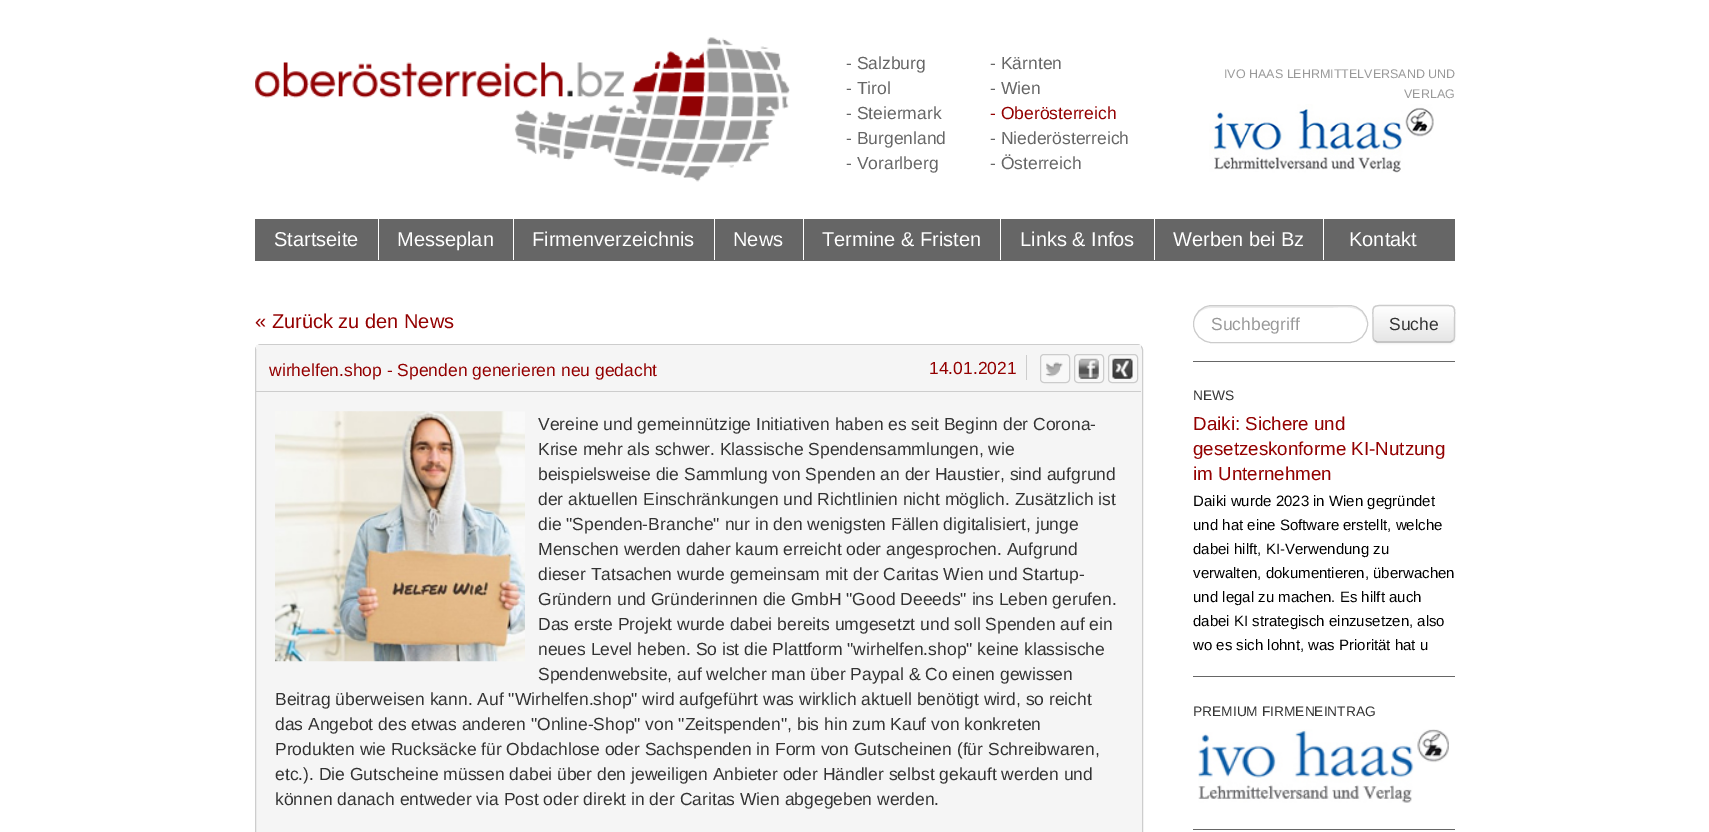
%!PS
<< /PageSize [1709 832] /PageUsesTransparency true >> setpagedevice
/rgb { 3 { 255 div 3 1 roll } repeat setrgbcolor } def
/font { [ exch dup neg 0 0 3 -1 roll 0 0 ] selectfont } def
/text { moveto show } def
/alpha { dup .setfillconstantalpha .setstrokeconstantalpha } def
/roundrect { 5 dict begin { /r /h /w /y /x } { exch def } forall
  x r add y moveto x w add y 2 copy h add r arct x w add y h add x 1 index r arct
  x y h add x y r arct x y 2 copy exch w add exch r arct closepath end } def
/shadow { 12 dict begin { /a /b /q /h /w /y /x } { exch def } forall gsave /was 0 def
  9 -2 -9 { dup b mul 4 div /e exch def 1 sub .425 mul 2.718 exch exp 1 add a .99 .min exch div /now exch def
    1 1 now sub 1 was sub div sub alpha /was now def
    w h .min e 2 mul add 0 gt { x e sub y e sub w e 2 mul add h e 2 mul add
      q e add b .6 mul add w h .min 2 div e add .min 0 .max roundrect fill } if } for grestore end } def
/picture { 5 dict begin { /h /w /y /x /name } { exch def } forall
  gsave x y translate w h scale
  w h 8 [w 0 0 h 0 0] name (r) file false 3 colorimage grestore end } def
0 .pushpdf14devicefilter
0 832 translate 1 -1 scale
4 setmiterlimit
255 255 255 rgb
0 0 1709 832 rectfill
(img_01.rgb) 255 37 535 145 picture
(img_02.rgb) 1209 104 225 69 picture
102 102 102 rgb
255 219 1200 42 rectfill
255 255 255 rgb
378 219 1 41 rectfill
513 219 1 41 rectfill
714 219 1 41 rectfill
803 219 1 41 rectfill
1000 219 1 41 rectfill
1154 219 1 41 rectfill
1323 219 1 41 rectfill
245 245 245 rgb
255.5 344.5 887 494 5.5 roundrect gsave fill grestore
205 205 205 rgb
stroke
245 245 245 rgb
256 345 885 4 rectfill
205 205 205 rgb
256 391 885 1 rectfill
1026 355 1 25 rectfill
248 248 248 rgb
1040.5 354.5 29 28 3.5 roundrect gsave fill grestore
204 204 204 rgb
stroke
(img_03.rgb) 1045 362 18 15 picture
248 248 248 rgb
1074.5 354.5 29 28 3.5 roundrect gsave fill grestore
204 204 204 rgb
stroke
(img_04.rgb) 1078 358 21 21 picture
248 248 248 rgb
1108.5 354.5 29 28 3.5 roundrect gsave fill grestore
204 204 204 rgb
stroke
(img_05.rgb) 1112 358 21 21 picture
(img_06.rgb) 275 411 250 251 picture
102 102 102 rgb
1193 361 262 1 rectfill
236 236 236 rgb
1211 308 moveto 115 0 rlineto 10 0 21 -2 30 1 rcurveto 6 2 9 7 10 13 rcurveto -1 -9 -8 -16 -18 -16 rcurveto -136 0 rlineto -9 0 -17 6 -18 15 rcurveto 2 -7 8 -13 17 -13 rcurveto closepath fill
204 204 204 rgb
1193.5 305.5 174 37 18.5 roundrect stroke
0 0 0 rgb
1373 306 82 38 5 1 0.05 shadow
245 245 245 rgb
1373 305 82 38 5 roundrect fill
gsave
1373 305 82 38 5 roundrect clip newpath
gsave 1373 306 moveto 82 0 rlineto 0 35 rlineto -82 0 rlineto closepath clip newpath
<< /ShadingType 2 /ColorSpace /DeviceRGB /Coords [1414 306 1414 341] /Extend [true true] /Function << /FunctionType 2 /Domain [0 1] /C0 [1 1 1] /C1 [0.902 0.902 0.902] /N 1 >> >> shfill grestore
grestore
179 179 179 rgb
1.2 setlinewidth
1453 340.5 moveto -2.5 1.5 rlineto -73.5 0 rlineto -2.5 -1.5 rlineto stroke
204 204 204 rgb
1374.5 340.5 moveto -2 -2 -1.5 -5 -1.5 -7.5 rcurveto 0 -9 rlineto 0 -20 -3 -18.5 16.5 -18.5 rcurveto 48.5 0 rlineto 19.5 0 16.5 -1.5 16.5 18.5 rcurveto 0 9 rlineto 0 2.5 0.5 5.5 -1.5 7.5 rcurveto stroke
102 102 102 rgb
1193 676 262 1 rectfill
1193 829 262 1 rectfill
(img_07.rgb) 1198 729 251 74 picture
/LiberationSans-Regular 17.5 font
(- Salzburg) 846 69 text
(- Tirol) 846 94 text
(- Steiermark) 846 119 text
(- Burgenland) 846 144 text
(- Vorarlberg) 846 169 text
(- Kärnten) 990 69 text
(- Wien) 990 94 text
147 0 0 rgb
(- Oberösterreich) 990 119 text
102 102 102 rgb
(- Niederösterreich) 990 144 text
(- Österreich) 990 169 text
/LiberationSans-Regular 12.5 font
153 153 153 rgb
(IVO HAAS LEHRMITTELVERSAND UND) 1224 78 text
(VERLAG) 1404 98 text
/Arimo-Regular 20 font
255 255 255 rgb
(Startseite) 274 246 text
(Messeplan) 397 246 text
(Firmenverzeichnis) 532 246 text
(News) 733 246 text
(Termine & Fristen) 822 246 text
(Links & Infos) 1020 246 text
(Werben bei Bz) 1173 246 text
(Kontakt) 1349 246 text
/LiberationSans-Regular 20 font
147 0 0 rgb
(« Zurück zu den News) 255 328 text
/LiberationSans-Regular 17.5 font
(wirhelfen.shop - Spenden generieren neu gedacht) 269 376 text
(14.01.2021) 929 374 text
51 51 51 rgb
(Vereine und gemeinnützige Initiativen haben es seit Beginn der Corona-) 538 430 text
(Krise mehr als schwer. Klassische Spendensammlungen, wie) 538 455 text
(beispielsweise die Sammlung von Spenden an der Haustier, sind aufgrund) 538 480 text
(der aktuellen Einschränkungen und Richtlinien nicht möglich. Zusätzlich ist) 538 505 text
(die "Spenden-Branche" nur in den wenigsten Fällen digitalisiert, junge) 538 530 text
(Menschen werden daher kaum erreicht oder angesprochen. Aufgrund) 538 555 text
(dieser Tatsachen wurde gemeinsam mit der Caritas Wien und Startup-) 538 580 text
(Gründern und Gründerinnen die GmbH "Good Deeeds" ins Leben gerufen.) 538 605 text
(Das erste Projekt wurde dabei bereits umgesetzt und soll Spenden auf ein) 538 630 text
(neues Level heben. So ist die Plattform "wirhelfen.shop" keine klassische) 538 655 text
(Spendenwebsite, auf welcher man über Paypal & Co einen gewissen) 538 680 text
(Beitrag überweisen kann. Auf "Wirhelfen.shop" wird aufgeführt was wirklich aktuell benötigt wird, so reicht) 275 705 text
(das Angebot des etwas anderen "Online-Shop" von "Zeitspenden", bis hin zum Kauf von konkreten) 275 730 text
(Produkten wie Rucksäcke für Obdachlose oder Sachspenden in Form von Gutscheinen \(für Schreibwaren,) 275 755 text
(etc.\). Die Gutscheine müssen dabei über den jeweiligen Anbieter oder Händler selbst gekauft werden und) 275 780 text
(können danach entweder via Post oder direkt in der Caritas Wien abgegeben werden.) 275 805 text
153 153 153 rgb
(Suchbegriff) 1211 330 text
51 51 51 rgb
(Suche) 1389 330 text
/Arimo-Regular 13.75 font
(NEWS) 1193 400 text
/Arimo-Regular 18.75 font
147 0 0 rgb
(Daiki: Sichere und) 1193 430 text
(gesetzeskonforme KI-Nutzung) 1193 455 text
(im Unternehmen) 1193 480 text
/LiberationSans-Regular 15 font
0 0 0 rgb
(Daiki wurde 2023 in Wien gegründet) 1193 506 text
(und hat eine Software erstellt, welche) 1193 530 text
(dabei hilft, KI-Verwendung zu) 1193 554 text
(verwalten, dokumentieren, überwachen) 1193 578 text
(und legal zu machen. Es hilft auch) 1193 602 text
(dabei KI strategisch einzusetzen, also) 1193 626 text
(wo es sich lohnt, was Priorität hat u) 1193 650 text
/Arimo-Regular 13.75 font
51 51 51 rgb
(PREMIUM FIRMENEINTRAG) 1193 716 text
.poppdf14devicefilter showpage
